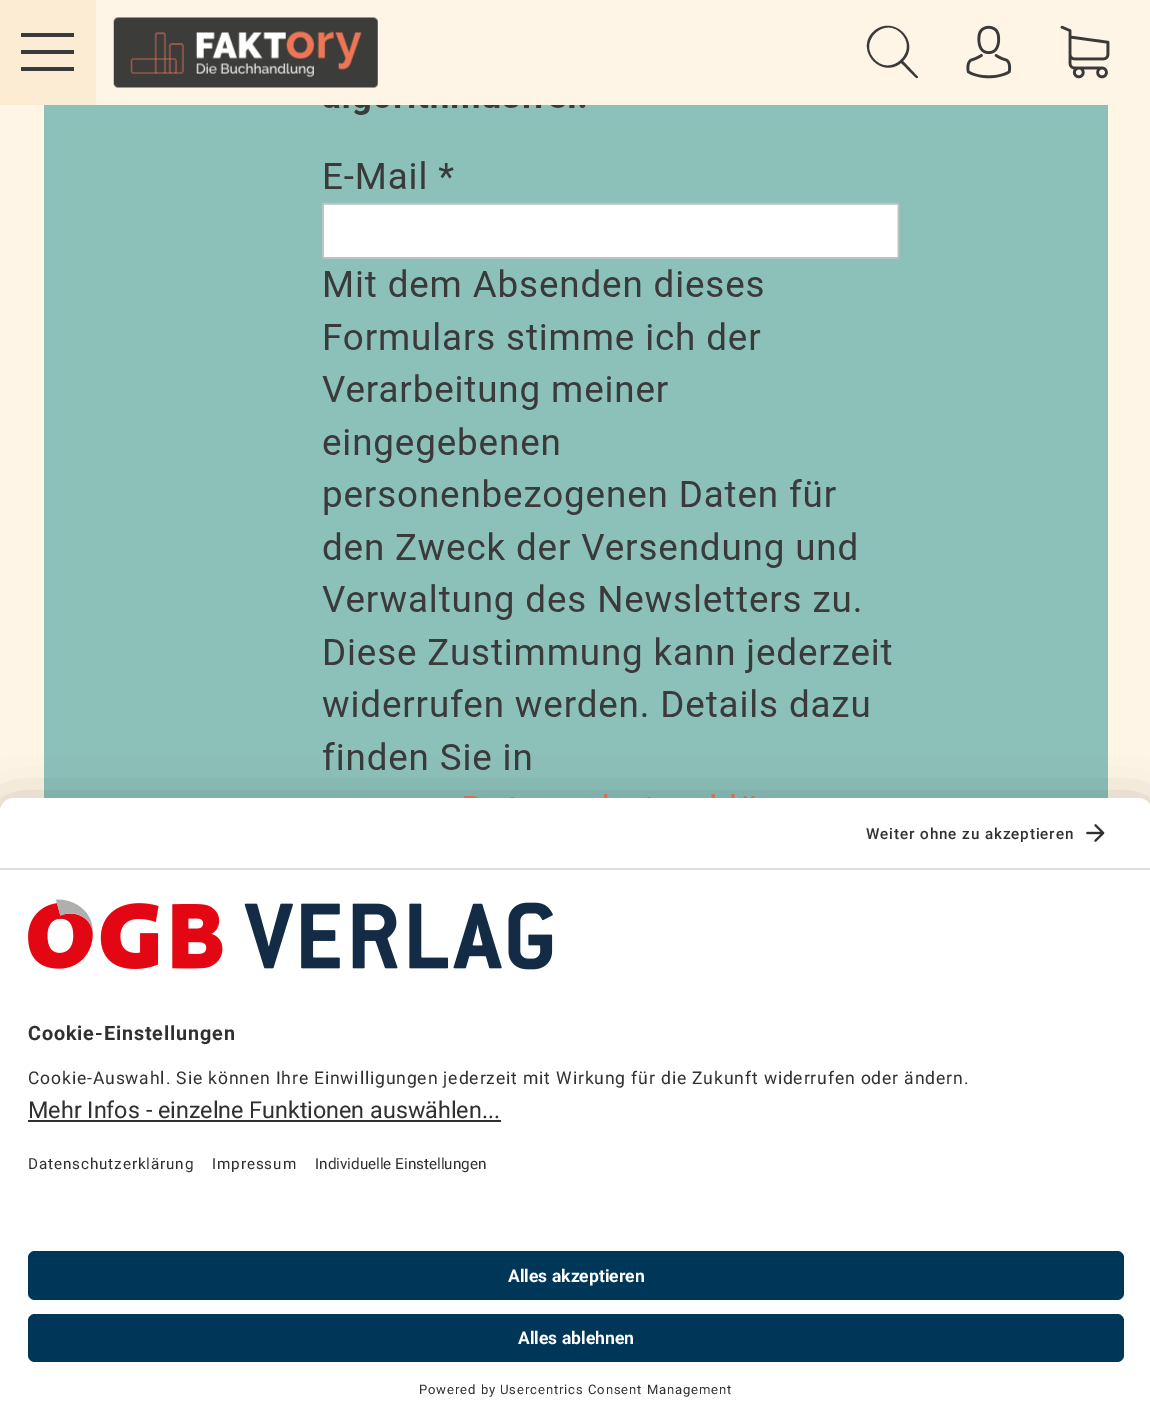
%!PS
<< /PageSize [1150 1426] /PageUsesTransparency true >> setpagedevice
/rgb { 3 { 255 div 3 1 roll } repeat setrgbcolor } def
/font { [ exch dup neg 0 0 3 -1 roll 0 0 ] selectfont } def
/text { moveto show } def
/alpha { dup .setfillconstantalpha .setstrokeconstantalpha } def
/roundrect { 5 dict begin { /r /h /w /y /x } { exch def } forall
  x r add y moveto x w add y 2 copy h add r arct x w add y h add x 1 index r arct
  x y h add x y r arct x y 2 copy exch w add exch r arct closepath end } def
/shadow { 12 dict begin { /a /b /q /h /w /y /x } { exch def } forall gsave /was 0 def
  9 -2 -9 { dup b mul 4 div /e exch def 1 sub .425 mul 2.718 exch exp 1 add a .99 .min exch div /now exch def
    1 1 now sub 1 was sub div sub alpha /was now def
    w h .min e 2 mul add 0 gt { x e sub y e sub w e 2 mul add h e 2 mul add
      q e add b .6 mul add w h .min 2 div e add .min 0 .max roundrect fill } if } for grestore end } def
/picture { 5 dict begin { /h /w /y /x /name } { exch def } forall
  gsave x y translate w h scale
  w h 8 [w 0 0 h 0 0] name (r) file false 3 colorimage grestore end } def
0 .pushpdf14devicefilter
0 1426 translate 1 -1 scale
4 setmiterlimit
255 245 230 rgb
0 0 1150 1426 rectfill
252 236 211 rgb
0 0 96 105 rectfill
58 58 58 rgb
21 37 moveto 0 -4 rlineto 53 0 rlineto 0 4 rlineto closepath 21 54 moveto 0 -4 rlineto 53 0 rlineto 0 4 rlineto closepath 21 71 moveto 0 -4 rlineto 53 0 rlineto 0 4 rlineto closepath fill
(img_01.rgb) 113 17 265 71 picture
918 77 moveto 0 0 0 1 -1 1 rcurveto -1 1 -13 -13 -16 -15 rcurveto -20 16 -46 -13 -28 -31 rcurveto 20 -19 49 10 30 29 rcurveto closepath 875 60 moveto 17 17 44 -9 26 -27 rcurveto -17 -17 -44 9 -26 27 rcurveto closepath fill
(img_02.rgb) 966 25 46 54 picture
(img_03.rgb) 1060 25 50 54 picture
140 193 185 rgb
44 105 1064 693 rectfill
(img_04.rgb) 322 105 578 693 picture
0 0 0 rgb
0 833 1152 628 14 24.5 0.3 shadow
0 807 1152 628 14 23 0.22 shadow
255 255 255 rgb
14 798 moveto 1124 0 rlineto 7.5 0 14 6.5 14 14 rcurveto 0 614 rlineto -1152 0 rlineto 0 -614 rlineto 0 -7.5 6.5 -14 14 -14 rcurveto closepath fill
14 798 moveto 1124 0 rlineto 7.5 0 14 6.5 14 14 rcurveto 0 58 rlineto -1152 0 rlineto 0 -58 rlineto 0 -7.5 6.5 -14 14 -14 rcurveto closepath fill
222 222 222 rgb
0 868 1150 2 rectfill
(img_05.rgb) 1086 824 19 18 picture
(img_06.rgb) 28 899 525 71 picture
48 48 48 rgb
28 1120 473 2 rectfill
0 55 88 rgb
28 1251 1096 49 7 roundrect fill
28 1314 1096 48 7 roundrect fill
/Roboto-Medium 15.25 font
48 48 48 rgb
866 839 moveto 0.88 0 (Weiter ohne zu akzeptieren) ashow
/Roboto-Bold 19.75 font
28 1040 moveto 0.88 0 (Cookie-Einstellungen) ashow
/Roboto-Regular 17.5 font
28 1084 moveto 0.88 0 (Cookie-Auswahl. Sie können Ihre Einwilligungen jederzeit mit Wirkung für die Zukunft widerrufen oder ändern.) ashow
/Roboto-Regular 23.3 font
(Mehr Infos - einzelne Funktionen auswählen...) 28 1118 text
/Roboto-Regular 15.25 font
28 1169 moveto 0.88 0 (Datenschutzerklärung) ashow
212 1169 moveto 0.88 0 (Impressum) ashow
(Individuelle Einstellungen) 315 1169 text
/Roboto-Bold 17.5 font
255 255 255 rgb
(Alles akzeptieren) 508 1282 text
(Alles ablehnen) 518 1344 text
/Roboto-Regular 13.1 font
48 48 48 rgb
419 1394 moveto 0.88 0 (Powered by Usercentrics Consent Management) ashow
.poppdf14devicefilter showpage
